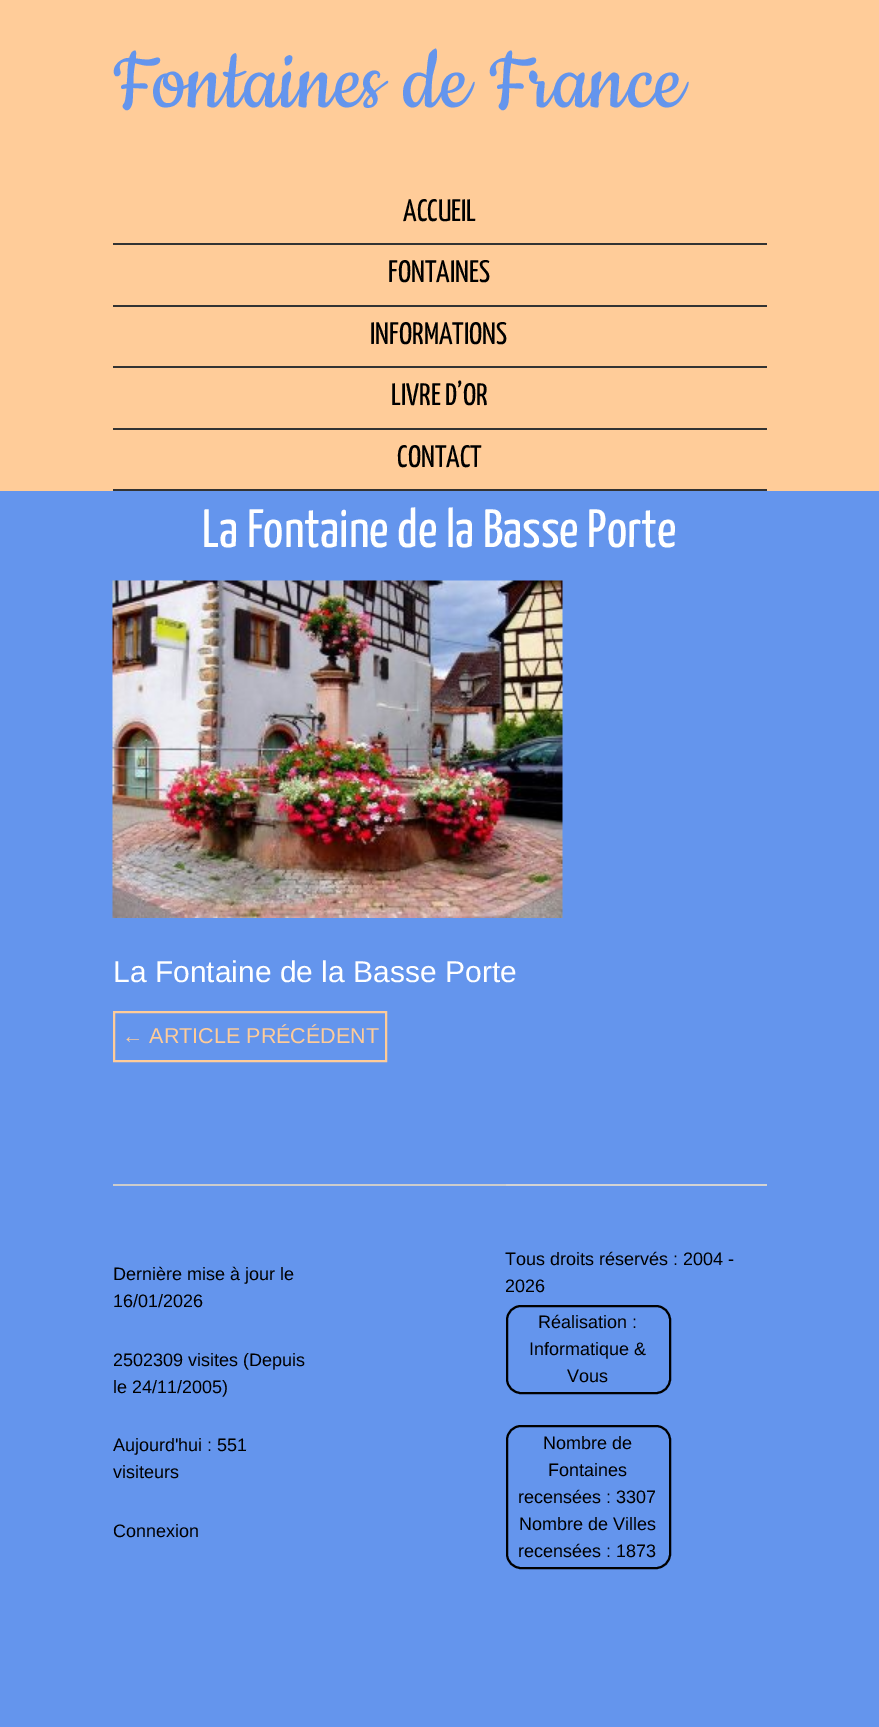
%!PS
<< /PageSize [879 1727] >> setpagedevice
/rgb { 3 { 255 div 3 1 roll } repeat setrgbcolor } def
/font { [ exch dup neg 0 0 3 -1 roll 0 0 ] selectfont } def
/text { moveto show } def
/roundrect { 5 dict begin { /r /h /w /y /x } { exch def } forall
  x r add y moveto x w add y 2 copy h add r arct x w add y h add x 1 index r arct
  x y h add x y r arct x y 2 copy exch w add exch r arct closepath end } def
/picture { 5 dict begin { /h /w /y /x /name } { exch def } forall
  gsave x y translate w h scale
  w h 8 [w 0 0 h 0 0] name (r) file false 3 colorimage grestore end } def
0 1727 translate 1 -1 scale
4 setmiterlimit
100 149 237 rgb
0 0 879 1727 rectfill
255 204 153 rgb
0 0 879 491 rectfill
51 51 51 rgb
113 243 654 2 rectfill
113 305 654 2 rectfill
113 366 654 2 rectfill
113 428 654 2 rectfill
113 489 654 2 rectfill
(img_01.rgb) 112 580 451 338 picture
255 204 153 rgb
2 setlinewidth
114 1012 272 49 rectstroke
204 204 204 rgb
113 1184 393 2 rectfill
211 211 211 rgb
506 1184 261 2 rectfill
0 0 0 rgb
507 1306 163 87 14 roundrect stroke
507 1426 163 142 14 roundrect stroke
/Cookie-Regular 97.5 font
100 149 237 rgb
(Fontaines de France) 113 107 text
/YanoneKaffeesatz-Regular 31 font
0 0 0 rgb
(ACCUEIL) 403 221 text
(FONTAINES) 388 282 text
(INFORMATIONS) 370 344 text
(LIVRE D’OR) 391 405 text
(CONTACT) 397 467 text
/YanoneKaffeesatz-Regular 54 font
255 255 255 rgb
(La Fontaine de la Basse Porte) 202 547 text
/LiberationSans-Regular 30 font
(La Fontaine de la Basse Porte) 113 982 text
/LiberationSans-Regular 21.5 font
255 204 153 rgb
(← ARTICLE PRÉCÉDENT) 122 1043 text
/LiberationSans-Regular 18 font
0 0 0 rgb
(Dernière mise à jour le) 113 1280 text
(16/01/2026) 113 1307 text
(2502309 visites \(Depuis) 113 1366 text
(le 24/11/2005\)) 113 1393 text
(Aujourd'hui : 551) 113 1451 text
(visiteurs) 113 1478 text
(Connexion) 113 1537 text
(Tous droits réservés : 2004 -) 505 1265 text
(2026) 505 1292 text
(Réalisation :) 538 1328 text
(Informatique &) 529 1355 text
(Vous) 567 1382 text
(Nombre de) 543 1449 text
(Fontaines) 548 1476 text
(recensées : 3307) 518 1503 text
(Nombre de Villes) 519 1530 text
(recensées : 1873) 518 1557 text
showpage
